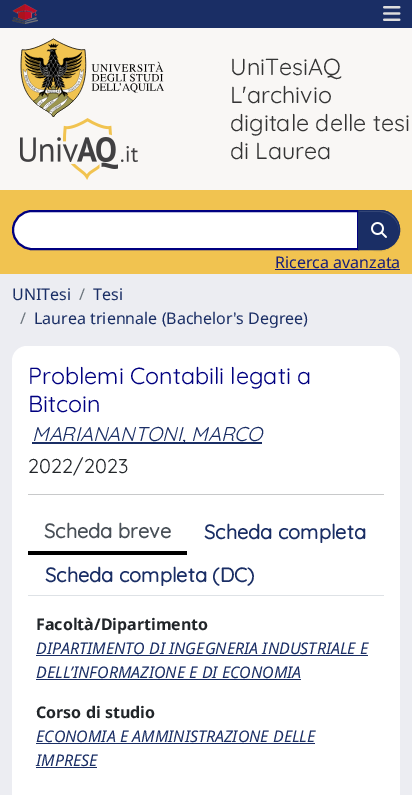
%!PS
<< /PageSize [412 795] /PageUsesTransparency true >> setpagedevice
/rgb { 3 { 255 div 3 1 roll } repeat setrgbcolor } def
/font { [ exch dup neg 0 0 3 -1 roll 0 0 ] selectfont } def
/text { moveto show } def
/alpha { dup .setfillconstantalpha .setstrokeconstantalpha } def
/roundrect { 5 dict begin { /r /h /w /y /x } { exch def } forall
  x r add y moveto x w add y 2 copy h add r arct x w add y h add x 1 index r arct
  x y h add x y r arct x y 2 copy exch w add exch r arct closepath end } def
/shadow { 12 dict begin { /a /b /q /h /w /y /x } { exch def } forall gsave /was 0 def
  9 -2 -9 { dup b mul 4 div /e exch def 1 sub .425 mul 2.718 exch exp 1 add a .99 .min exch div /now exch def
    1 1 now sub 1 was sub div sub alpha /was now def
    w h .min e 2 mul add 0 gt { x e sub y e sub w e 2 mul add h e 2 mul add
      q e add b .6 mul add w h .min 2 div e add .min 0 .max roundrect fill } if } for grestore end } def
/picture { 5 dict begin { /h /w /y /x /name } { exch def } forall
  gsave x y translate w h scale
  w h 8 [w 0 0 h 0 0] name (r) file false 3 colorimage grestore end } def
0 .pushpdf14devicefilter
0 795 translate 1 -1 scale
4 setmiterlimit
236 237 242 rgb
0 0 412 795 rectfill
26 46 101 rgb
0 0 412 28 rectfill
(img_01.rgb) 12 4 26 20 picture
(img_02.rgb) 383 6 18 15 picture
249 247 245 rgb
0 28 412 162 rectfill
(img_03.rgb) 20 38 144 79 picture
(img_04.rgb) 20 118 118 62 picture
241 195 80 rgb
0 190 412 84 rectfill
255 255 255 rgb
32 211 moveto 326 0 rlineto 0 38 rlineto -326 0 rlineto -10.5 0 -19 -8.5 -19 -19 rcurveto 0 -10.5 8.5 -19 19 -19 rcurveto closepath gsave fill grestore
0 0 128 rgb
2 setlinewidth
stroke
0 0 0 rgb
358 211 42 40 20 0.5 0.07 shadow
26 46 101 rgb
358 210 moveto 22 0 rlineto 11 0 20 9 20 20 rcurveto 0 11 -9 20 -20 20 rcurveto -22 0 rlineto closepath fill
60 77 124 rgb
359 212 moveto 21 0 rlineto 10 0 19 9 19 19 rcurveto 0 -1 rlineto 0 -10 -9 -19 -19 -19 rcurveto -21 0 rlineto closepath fill
26 46 101 rgb
1 setlinewidth
358.5 210.5 moveto 21.5 0 rlineto 11 0 19.5 8.5 19.5 19.5 rcurveto 0 11 -8.5 19.5 -19.5 19.5 rcurveto -21.5 0 rlineto closepath stroke
(img_05.rgb) 371 222 16 16 picture
25 31 121 rgb
275 269 125 1 rectfill
255 255 255 rgb
12 346 388 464 15 roundrect fill
26 46 101 rgb
32 442 230 2 rectfill
200 201 202 rgb
28 494 356 1 rectfill
222 226 230 rgb
28 595 356 1 rectfill
0 0 0 rgb
28 551 159 4 rectfill
26 46 101 rgb
36 655 332 1 rectfill
36 679 265 1 rectfill
36 743 279 1 rectfill
36 767 61 1 rectfill
/Quicksand-Regular 23.25 font
52 52 52 rgb
(UniTesiAQ) 230 75 text
(L'archivio) 230 103 text
(digitale delle tesi) 230 131 text
(di Laurea) 230 159 text
/NotoSans-Regular 16 font
25 31 121 rgb
(Ricerca avanzata) 275 268 text
26 46 101 rgb
(UNITesi) 12 300 text
108 117 125 rgb
(/) 79 300 text
26 46 101 rgb
(Tesi) 93 300 text
108 117 125 rgb
(/) 20 324 text
26 46 101 rgb
(Laurea triennale \(Bachelor's Degree\)) 34 324 text
/Quicksand-Regular 23.25 font
0 0 128 rgb
(Problemi Contabili legati a) 28 384 text
(Bitcoin) 28 412 text
/Quicksand-Italic 20 font
26 46 101 rgb
(MARIANANTONI, MARCO) 32 441 text
/Quicksand-Regular 20 font
33 37 41 rgb
(2022/2023) 28 473 text
/Quicksand-Bold 20 font
73 80 87 rgb
(Scheda breve) 44 538 text
26 46 101 rgb
(Scheda completa) 204 539 text
(Scheda completa \(DC\)) 45 582 text
/NotoSans-Bold 16 font
33 37 41 rgb
(Facoltà/Dipartimento) 36 630 text
/NotoSans-Italic 16 font
26 46 101 rgb
(DIPARTIMENTO DI INGEGNERIA INDUSTRIALE E) 36 654 text
(DELL’INFORMAZIONE E DI ECONOMIA) 36 678 text
/NotoSans-Bold 16 font
33 37 41 rgb
(Corso di studio) 36 718 text
/NotoSans-Italic 16 font
26 46 101 rgb
(ECONOMIA E AMMINISTRAZIONE DELLE) 36 742 text
(IMPRESE) 36 766 text
.poppdf14devicefilter showpage
